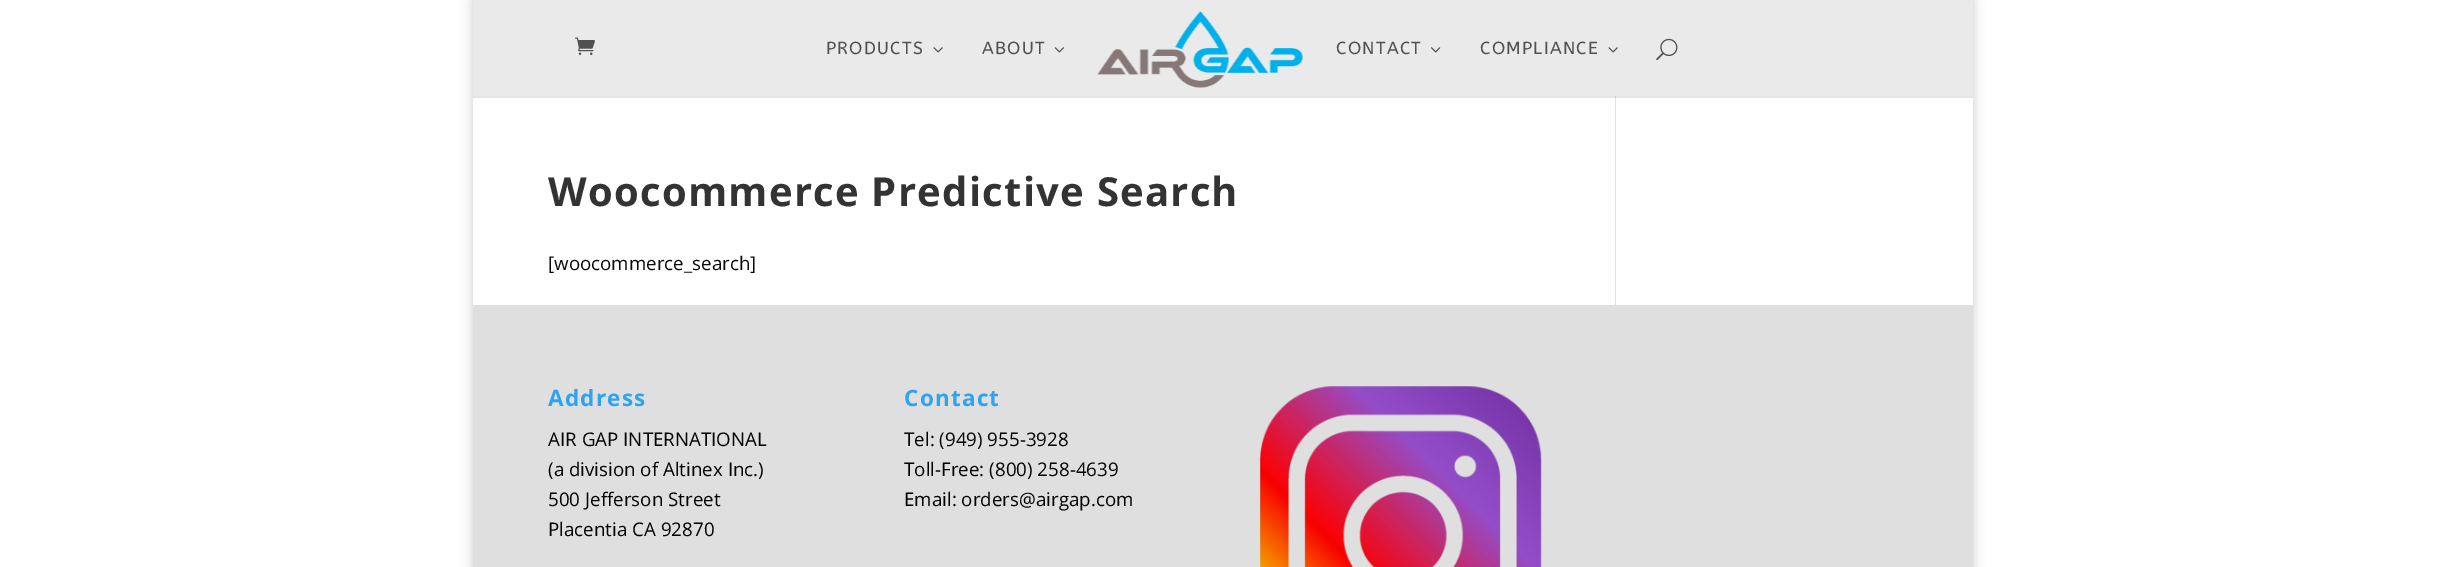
%!PS
<< /PageSize [2445 567] /PageUsesTransparency true >> setpagedevice
/rgb { 3 { 255 div 3 1 roll } repeat setrgbcolor } def
/font { [ exch dup neg 0 0 3 -1 roll 0 0 ] selectfont } def
/text { moveto show } def
/alpha { dup .setfillconstantalpha .setstrokeconstantalpha } def
/roundrect { 5 dict begin { /r /h /w /y /x } { exch def } forall
  x r add y moveto x w add y 2 copy h add r arct x w add y h add x 1 index r arct
  x y h add x y r arct x y 2 copy exch w add exch r arct closepath end } def
/shadow { 12 dict begin { /a /b /q /h /w /y /x } { exch def } forall gsave /was 0 def
  9 -2 -9 { dup b mul 4 div /e exch def 1 sub .425 mul 2.718 exch exp 1 add a .99 .min exch div /now exch def
    1 1 now sub 1 was sub div sub alpha /was now def
    w h .min e 2 mul add 0 gt { x e sub y e sub w e 2 mul add h e 2 mul add
      q e add b .6 mul add w h .min 2 div e add .min 0 .max roundrect fill } if } for grestore end } def
/picture { 5 dict begin { /h /w /y /x /name } { exch def } forall
  gsave x y translate w h scale
  w h 8 [w 0 0 h 0 0] name (r) file false 3 colorimage grestore end } def
0 .pushpdf14devicefilter
0 567 translate 1 -1 scale
4 setmiterlimit
255 255 255 rgb
0 0 2445 567 rectfill
gsave
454 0 moveto 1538 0 rlineto 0 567 rlineto -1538 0 rlineto closepath 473 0 moveto 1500 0 rlineto 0 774 rlineto -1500 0 rlineto closepath eoclip newpath
0 0 0 rgb
473 0 1500 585 0 6 0.2 shadow
grestore
1972 96 1 209 rectfill
226 226 226 rgb
1615 96 1 209 rectfill
0.1 alpha
0 0 0 rgb
473 96 moveto 0 2 rlineto 1500 0 rlineto 0 -97 rlineto -1 0 rlineto 0 95 rlineto closepath fill
1 alpha
234 234 234 rgb
473 0 1500 96 rectfill
(img_01.rgb) 575 37 20 18 picture
(img_02.rgb) 933 47 10 6 picture
(img_03.rgb) 1054 47 10 6 picture
(img_04.rgb) 1097 11 206 77 picture
(img_05.rgb) 1431 47 10 6 picture
(img_02.rgb) 1608 47 10 6 picture
(img_06.rgb) 1656 38 22 23 picture
0.59 alpha
201 201 201 rgb
473 305 1500 262 rectfill
1 alpha
(img_07.rgb) 1260 386 282 181 picture
/ABeeZee-Regular 17.5 font
81 81 81 rgb
826 54 moveto 1.25 0 (PRODUCTS) ashow
982 54 moveto 1.25 0 (ABOUT) ashow
1336 54 moveto 1.25 0 (CONTACT) ashow
1480 54 moveto 1.25 0 (COMPLIANCE) ashow
/OpenSans-Bold 40 font
51 51 51 rgb
548 206 moveto 1.25 0 (Woocommerce Predictive Search) ashow
/OpenSans-Regular 18.75 font
10 10 10 rgb
([woocommerce_search]) 548 270 text
/OpenSans-Bold 22.5 font
46 163 242 rgb
548 406 moveto 1.25 0 (Address) ashow
/OpenSans-Regular 18.75 font
2 2 2 rgb
(AIR GAP INTERNATIONAL) 548 446 text
(\(a division of Altinex Inc.\)) 548 476 text
(500 Jefferson Street) 548 506 text
(Placentia CA 92870) 548 536 text
/OpenSans-Bold 22.5 font
46 163 242 rgb
904 406 moveto 1.25 0 (Contact) ashow
/OpenSans-Regular 18.75 font
2 2 2 rgb
(Tel: \(949\) 955-3928) 904 446 text
(Toll-Free: \(800\) 258-4639) 904 476 text
(Email: orders@airgap.com) 904 506 text
.poppdf14devicefilter showpage
